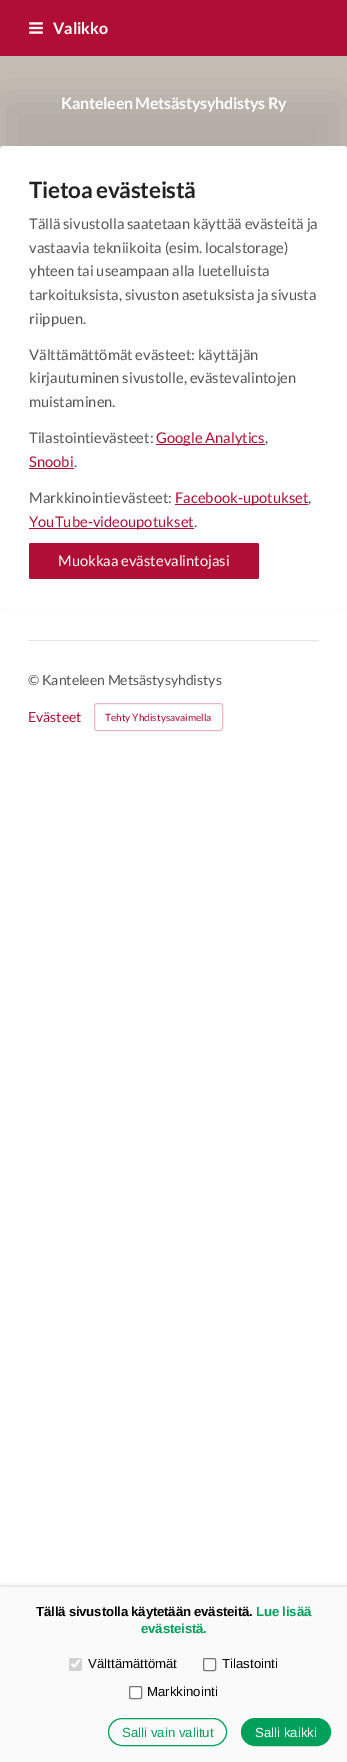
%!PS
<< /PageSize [347 1762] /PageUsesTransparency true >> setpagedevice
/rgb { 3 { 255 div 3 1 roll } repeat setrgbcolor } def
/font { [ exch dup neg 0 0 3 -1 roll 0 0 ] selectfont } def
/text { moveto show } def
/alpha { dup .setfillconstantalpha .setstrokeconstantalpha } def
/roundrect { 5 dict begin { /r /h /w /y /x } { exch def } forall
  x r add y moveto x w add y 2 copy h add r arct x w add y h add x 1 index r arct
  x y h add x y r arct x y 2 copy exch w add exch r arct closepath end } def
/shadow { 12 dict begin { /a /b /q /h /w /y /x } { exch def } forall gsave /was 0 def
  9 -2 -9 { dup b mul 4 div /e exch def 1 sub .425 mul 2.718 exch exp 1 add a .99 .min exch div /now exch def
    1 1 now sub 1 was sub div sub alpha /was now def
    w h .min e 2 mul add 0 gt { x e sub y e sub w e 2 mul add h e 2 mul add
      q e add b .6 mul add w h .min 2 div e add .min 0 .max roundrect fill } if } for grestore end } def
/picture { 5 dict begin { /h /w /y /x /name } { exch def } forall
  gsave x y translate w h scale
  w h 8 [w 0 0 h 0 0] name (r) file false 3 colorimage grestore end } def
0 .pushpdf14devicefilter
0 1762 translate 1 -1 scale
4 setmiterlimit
255 255 255 rgb
0 0 347 1762 rectfill
199 191 182 rgb
0 56 347 93 rectfill
0 0 0 rgb
0 96 347 462 3 25 0.1 shadow
177 14 53 rgb
0 0 347 56 rectfill
(img_01.rgb) 29 22 14 12 picture
255 255 255 rgb
0 146 347 462 3 roundrect fill
177 14 53 rgb
156 444 109 1 rectfill
29 468 45 1 rectfill
175 504 133 1 rectfill
29 528 165 1 rectfill
29 543 230 36 2 roundrect fill
230 230 230 rgb
28 640 291 1 rectfill
232 183 194 rgb
94.5 703.5 128 27 2.5 roundrect stroke
0 0 0 rgb
0 1587 347 175 0 2.5 0.2 shadow
250 250 250 rgb
0 1587 347 175 rectfill
210 210 210 rgb
69 1658 13 13 2 roundrect fill
255 255 255 rgb
2.1 setlinewidth
71.5 1664 moveto 2.5 2.5 rlineto 5.5 -6.5 rlineto stroke
203.5 1658.5 12 12 1.5 roundrect gsave fill grestore
118 118 118 rgb
1 setlinewidth
stroke
255 255 255 rgb
129.5 1686.5 12 12 1.5 roundrect gsave fill grestore
118 118 118 rgb
stroke
0 160 90 rgb
108.5 1718.5 118 27 13.5 roundrect stroke
241.5 1718.5 89 27 13.5 roundrect gsave fill grestore
stroke
/Lato-Bold 16 font
255 255 255 rgb
(Valikko) 53 34 text
61 109 moveto -0.25 0 (Kanteleen Metsästysyhdistys Ry) ashow
/Lato-Bold 22.5 font
34 34 34 rgb
29 198 moveto -0.3 0 (Tietoa evästeistä) ashow
/Lato-Regular 14.75 font
85 85 85 rgb
(Tällä sivustolla saatetaan käyttää evästeitä ja) 29 229 text
(vastaavia tekniikoita \(esim. localstorage\)) 29 253 text
(yhteen tai useampaan alla luetelluista) 29 276 text
(tarkoituksista, sivuston asetuksista ja sivusta) 29 300 text
(riippuen.) 29 324 text
(Välttämättömät evästeet: käyttäjän) 29 360 text
(kirjautuminen sivustolle, evästevalintojen) 29 383 text
(muistaminen.) 29 407 text
(Tilastointievästeet:) 29 443 text
177 14 53 rgb
(Google Analytics) 156 443 text
85 85 85 rgb
(,) 265 443 text
177 14 53 rgb
(Snoobi) 29 467 text
85 85 85 rgb
(.) 74 467 text
(Markkinointievästeet:) 29 503 text
177 14 53 rgb
(Facebook-upotukset) 175 503 text
85 85 85 rgb
(,) 308 503 text
177 14 53 rgb
(YouTube-videoupotukset) 29 527 text
85 85 85 rgb
(.) 194 527 text
255 255 255 rgb
(Muokkaa evästevalintojasi) 58 566 text
/Lato-Regular 14 font
85 85 85 rgb
(© Kanteleen Metsästysyhdistys) 28 685 text
177 14 53 rgb
(Evästeet) 28 722 text
/Lato-Regular 10 font
(Tehty Yhdistysavaimella) 105 721 text
/LiberationSans-Bold 13.25 font
2 2 2 rgb
36 1616 moveto -0.2 0 (Tällä sivustolla käytetään evästeitä.) ashow
0 160 90 rgb
256 1616 moveto -0.2 0 (Lue lisää) ashow
141 1633 moveto -0.2 0 (evästeistä.) ashow
/LiberationSans-Regular 13.25 font
2 2 2 rgb
(Välttämättömät) 88 1668 text
(Tilastointi) 222 1668 text
(Markkinointi) 147 1696 text
0 160 90 rgb
(Salli vain valitut) 122 1737 text
255 255 255 rgb
(Salli kaikki) 255 1737 text
.poppdf14devicefilter showpage
